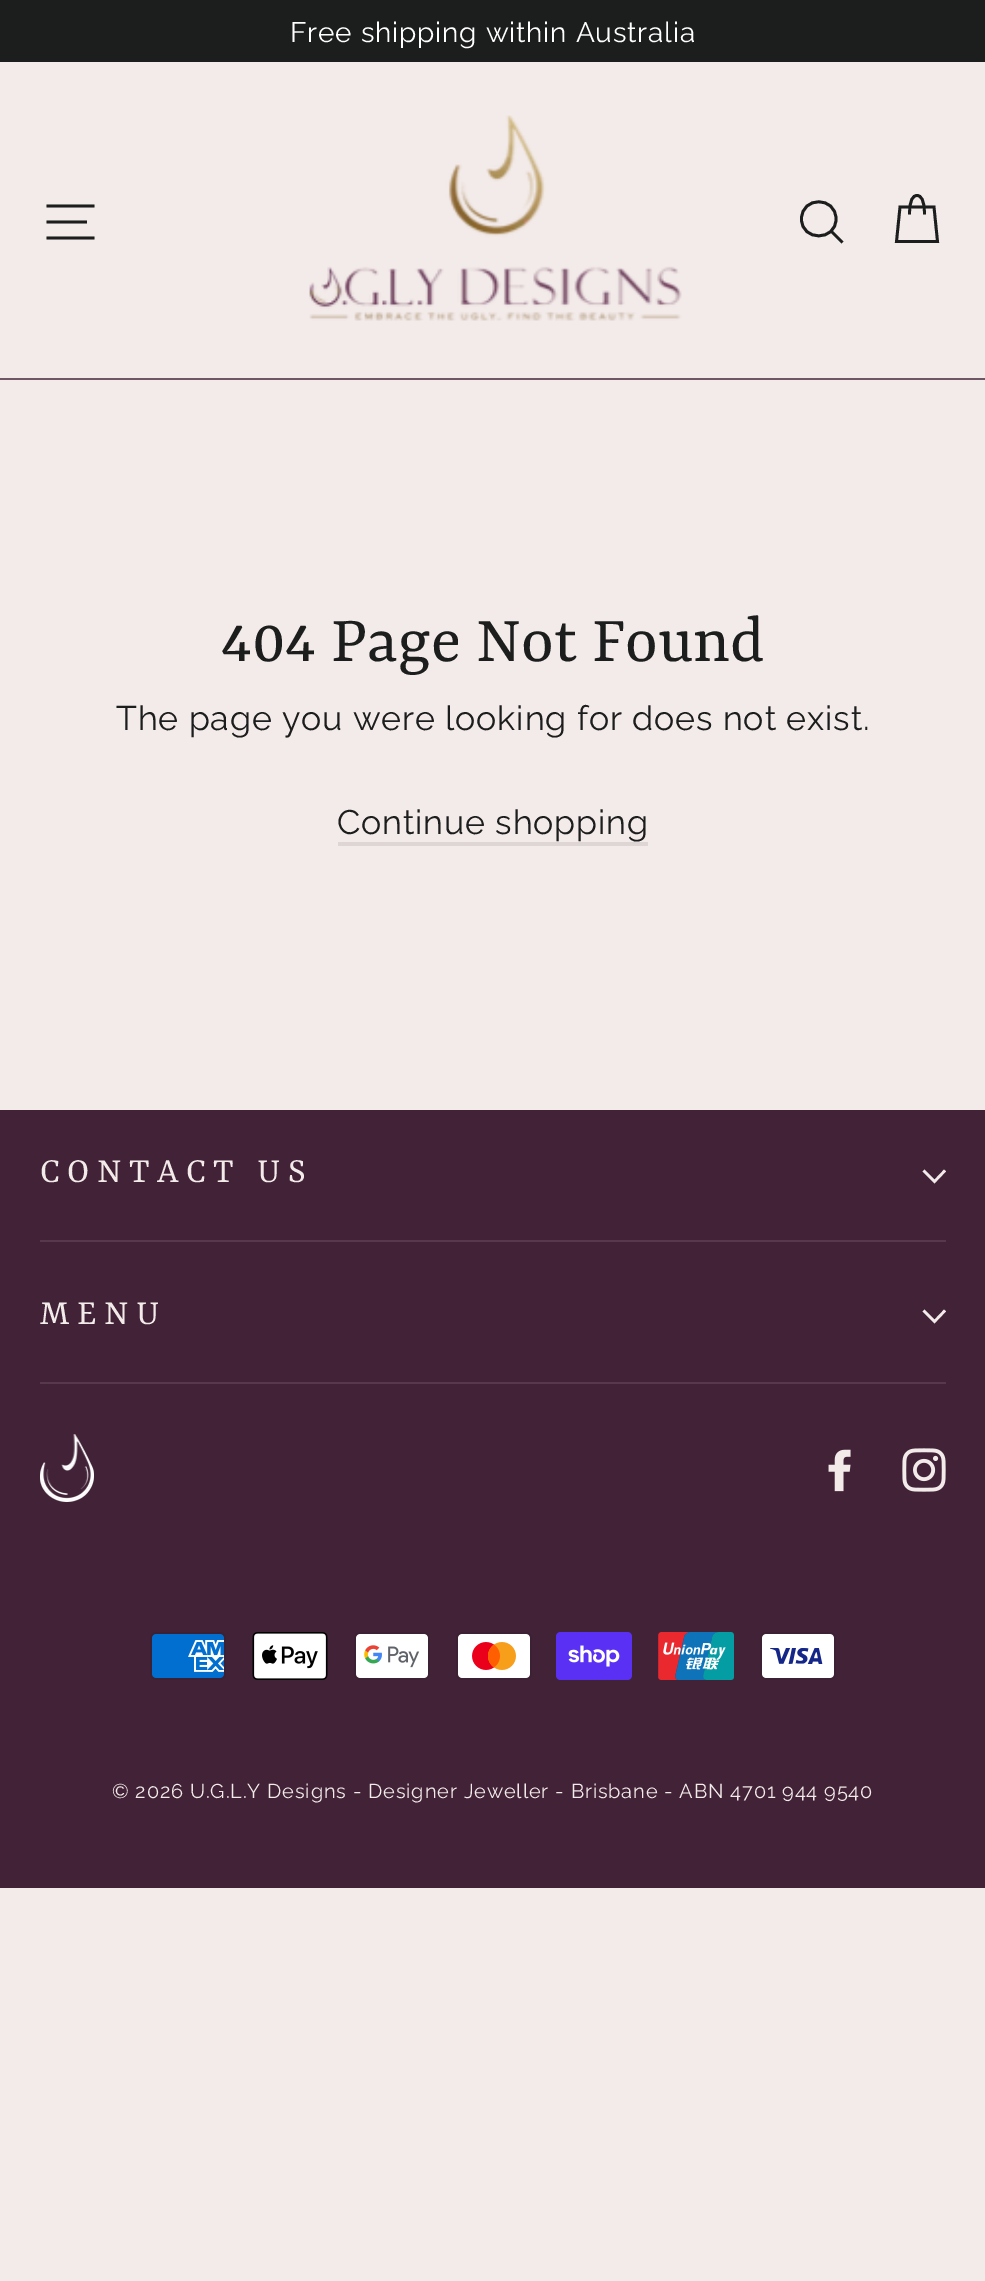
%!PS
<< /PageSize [985 2281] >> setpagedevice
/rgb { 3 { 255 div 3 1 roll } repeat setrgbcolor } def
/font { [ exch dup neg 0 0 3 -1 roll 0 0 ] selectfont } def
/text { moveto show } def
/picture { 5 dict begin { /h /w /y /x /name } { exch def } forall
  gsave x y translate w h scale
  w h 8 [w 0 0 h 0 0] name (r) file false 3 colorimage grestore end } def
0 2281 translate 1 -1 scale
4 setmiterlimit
243 235 233 rgb
0 0 985 2281 rectfill
28 29 29 rgb
0 0 985 62 rectfill
110 86 101 rgb
0 378 985 2 rectfill
28 29 29 rgb
2.8 setlinewidth
46.5 206 moveto 48 0 rlineto 46.5 222 moveto 40.5 0 rlineto 46.5 238 moveto 48 0 rlineto stroke
(img_01.rgb) 309 115 373 206 picture
836 219 moveto 0 22.5 -34.5 22.5 -34.5 0 rcurveto 0 -23 34.5 -23 34.5 0 rcurveto closepath 842.5 242.5 moveto -11 -11 rlineto stroke
909.5 214.5 moveto 0 -15 3.5 -19 7.5 -19 rcurveto 4 0 7.5 4 7.5 19 rcurveto 900 207 moveto 34 0 rlineto 3.5 34.5 rlineto -41 0 rlineto closepath stroke
222 214 213 rgb
338 842 310 4 rectfill
65 34 55 rgb
0 1110 985 778 rectfill
243 235 233 rgb
2.6 setlinewidth
923.5 1170.5 moveto 11 11 rlineto 10.5 -11 rlineto stroke
86 58 76 rgb
40 1240 906 2 rectfill
243 235 233 rgb
923.5 1310.5 moveto 11 11 rlineto 10.5 -11 rlineto stroke
86 58 76 rgb
40 1382 906 2 rectfill
(img_02.rgb) 40 1434 54 68 picture
(img_03.rgb) 828 1449 23 43 picture
(img_04.rgb) 902 1448 44 44 picture
(img_05.rgb) 150 1632 76 48 picture
(img_06.rgb) 252 1632 76 48 picture
(img_07.rgb) 354 1632 76 48 picture
(img_08.rgb) 456 1632 76 48 picture
(img_09.rgb) 556 1632 76 48 picture
(img_10.rgb) 658 1632 76 48 picture
(img_11.rgb) 760 1632 76 48 picture
/Raleway-Regular 28 font
255 255 255 rgb
290 42 moveto 0.85 0 (Free shipping within Australia) ashow
/Rasa-Regular 70 font
28 29 29 rgb
(404 Page Not Found) 221 661 text
/Raleway-Regular 34 font
116 730 moveto 0.85 0 (The page you were looking for does not exist.) ashow
337 834 moveto 0.85 0 (Continue shopping) ashow
/Rasa-Regular 38 font
243 235 233 rgb
40 1182 moveto 7.5 0 (CONTACT US) ashow
40 1324 moveto 7.5 0 (MENU) ashow
/Raleway-Regular 20 font
112 1798 moveto 0.85 0 (© 2026 U.G.L.Y Designs - Designer Jeweller - Brisbane - ABN 4701 944 9540) ashow
showpage
